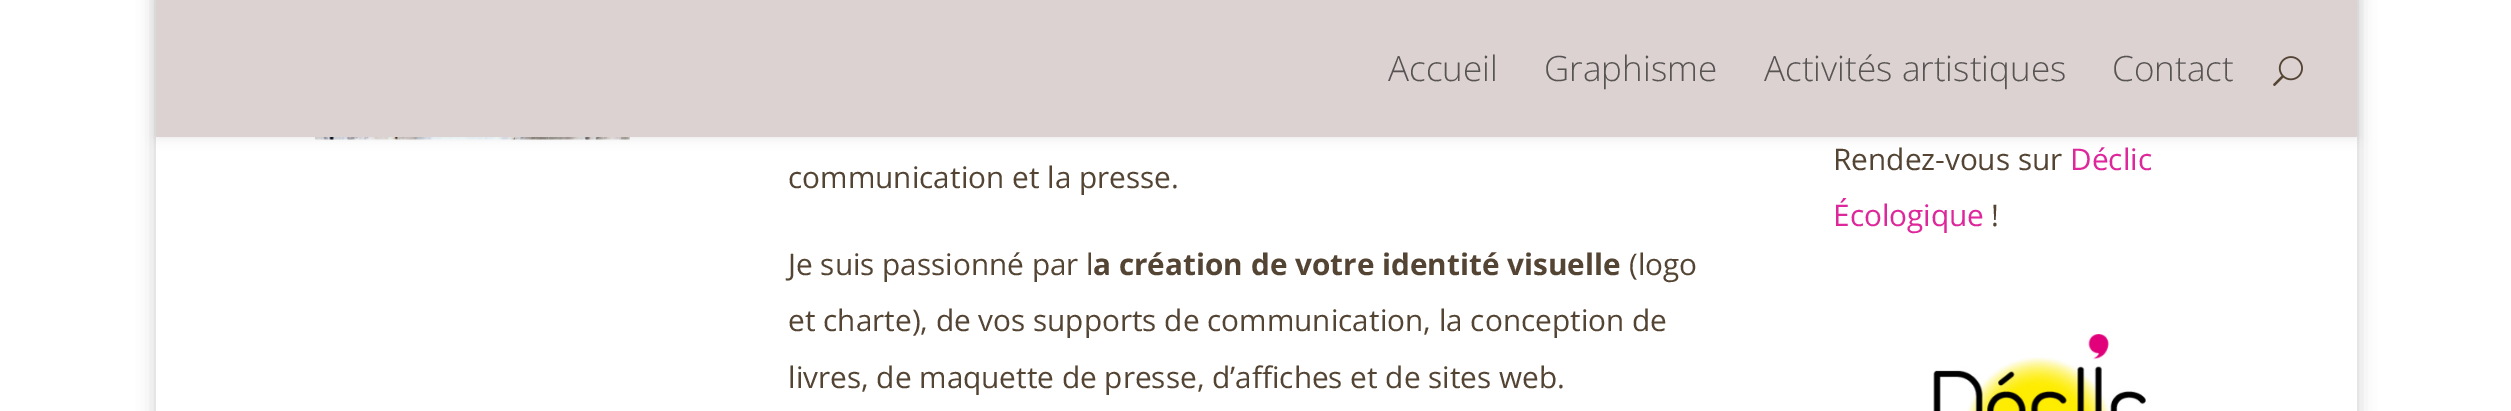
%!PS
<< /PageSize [2511 411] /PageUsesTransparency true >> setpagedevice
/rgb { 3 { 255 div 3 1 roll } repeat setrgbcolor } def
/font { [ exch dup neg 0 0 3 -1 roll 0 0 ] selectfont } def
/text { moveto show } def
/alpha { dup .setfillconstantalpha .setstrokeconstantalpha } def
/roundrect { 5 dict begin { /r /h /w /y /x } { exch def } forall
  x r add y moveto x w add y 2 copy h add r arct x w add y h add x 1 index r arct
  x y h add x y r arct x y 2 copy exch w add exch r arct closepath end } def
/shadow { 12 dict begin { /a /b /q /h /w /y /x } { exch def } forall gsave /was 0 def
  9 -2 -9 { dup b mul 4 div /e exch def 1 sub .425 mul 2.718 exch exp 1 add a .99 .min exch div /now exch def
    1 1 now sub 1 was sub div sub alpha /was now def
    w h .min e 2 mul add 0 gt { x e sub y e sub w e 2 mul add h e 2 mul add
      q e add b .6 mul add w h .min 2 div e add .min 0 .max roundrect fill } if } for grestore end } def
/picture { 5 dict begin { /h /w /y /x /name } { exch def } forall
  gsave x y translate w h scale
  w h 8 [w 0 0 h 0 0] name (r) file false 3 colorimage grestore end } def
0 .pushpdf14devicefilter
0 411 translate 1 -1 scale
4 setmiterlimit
255 255 255 rgb
0 0 2511 411 rectfill
gsave
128 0 moveto 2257 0 rlineto 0 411 rlineto -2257 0 rlineto closepath 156 -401 moveto 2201 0 rlineto 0 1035 rlineto -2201 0 rlineto closepath eoclip newpath
0 0 0 rgb
156 -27 2201 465 0 9 0.2 shadow
grestore
(img_02.rgb) 314 137 316 3 picture
0 0 0 rgb
156 0 2201 137 0 6 0.1 shadow
221 210 210 rgb
156 0 2201 137 rectfill
(img_01.rgb) 2273 56 30 30 picture
(img_03.rgb) 1933 334 213 77 picture
/OpenSans-Light 35 font
88 84 84 rgb
(Accueil) 1388 81 text
(Graphisme) 1544 81 text
(Activités artistiques) 1764 81 text
(Contact) 2112 81 text
/OpenSans-Regular 29.75 font
84 68 52 rgb
(communication et la presse.) 788 188 text
(Je suis passionné par l) 788 275 text
/OpenSans-Bold 29.75 font
(a création de votre identité visuelle) 1093 275 text
/OpenSans-Regular 29.75 font
(\(logo) 1629 275 text
(et charte\), de vos supports de communication, la conception de) 788 331 text
(livres, de maquette de presse, d’affiches et de sites web.) 788 388 text
(Rendez-vous sur) 1833 170 text
221 39 155 rgb
(Déclic) 2070 170 text
(Écologique) 1833 226 text
84 68 52 rgb
(!) 1991 226 text
.poppdf14devicefilter showpage
